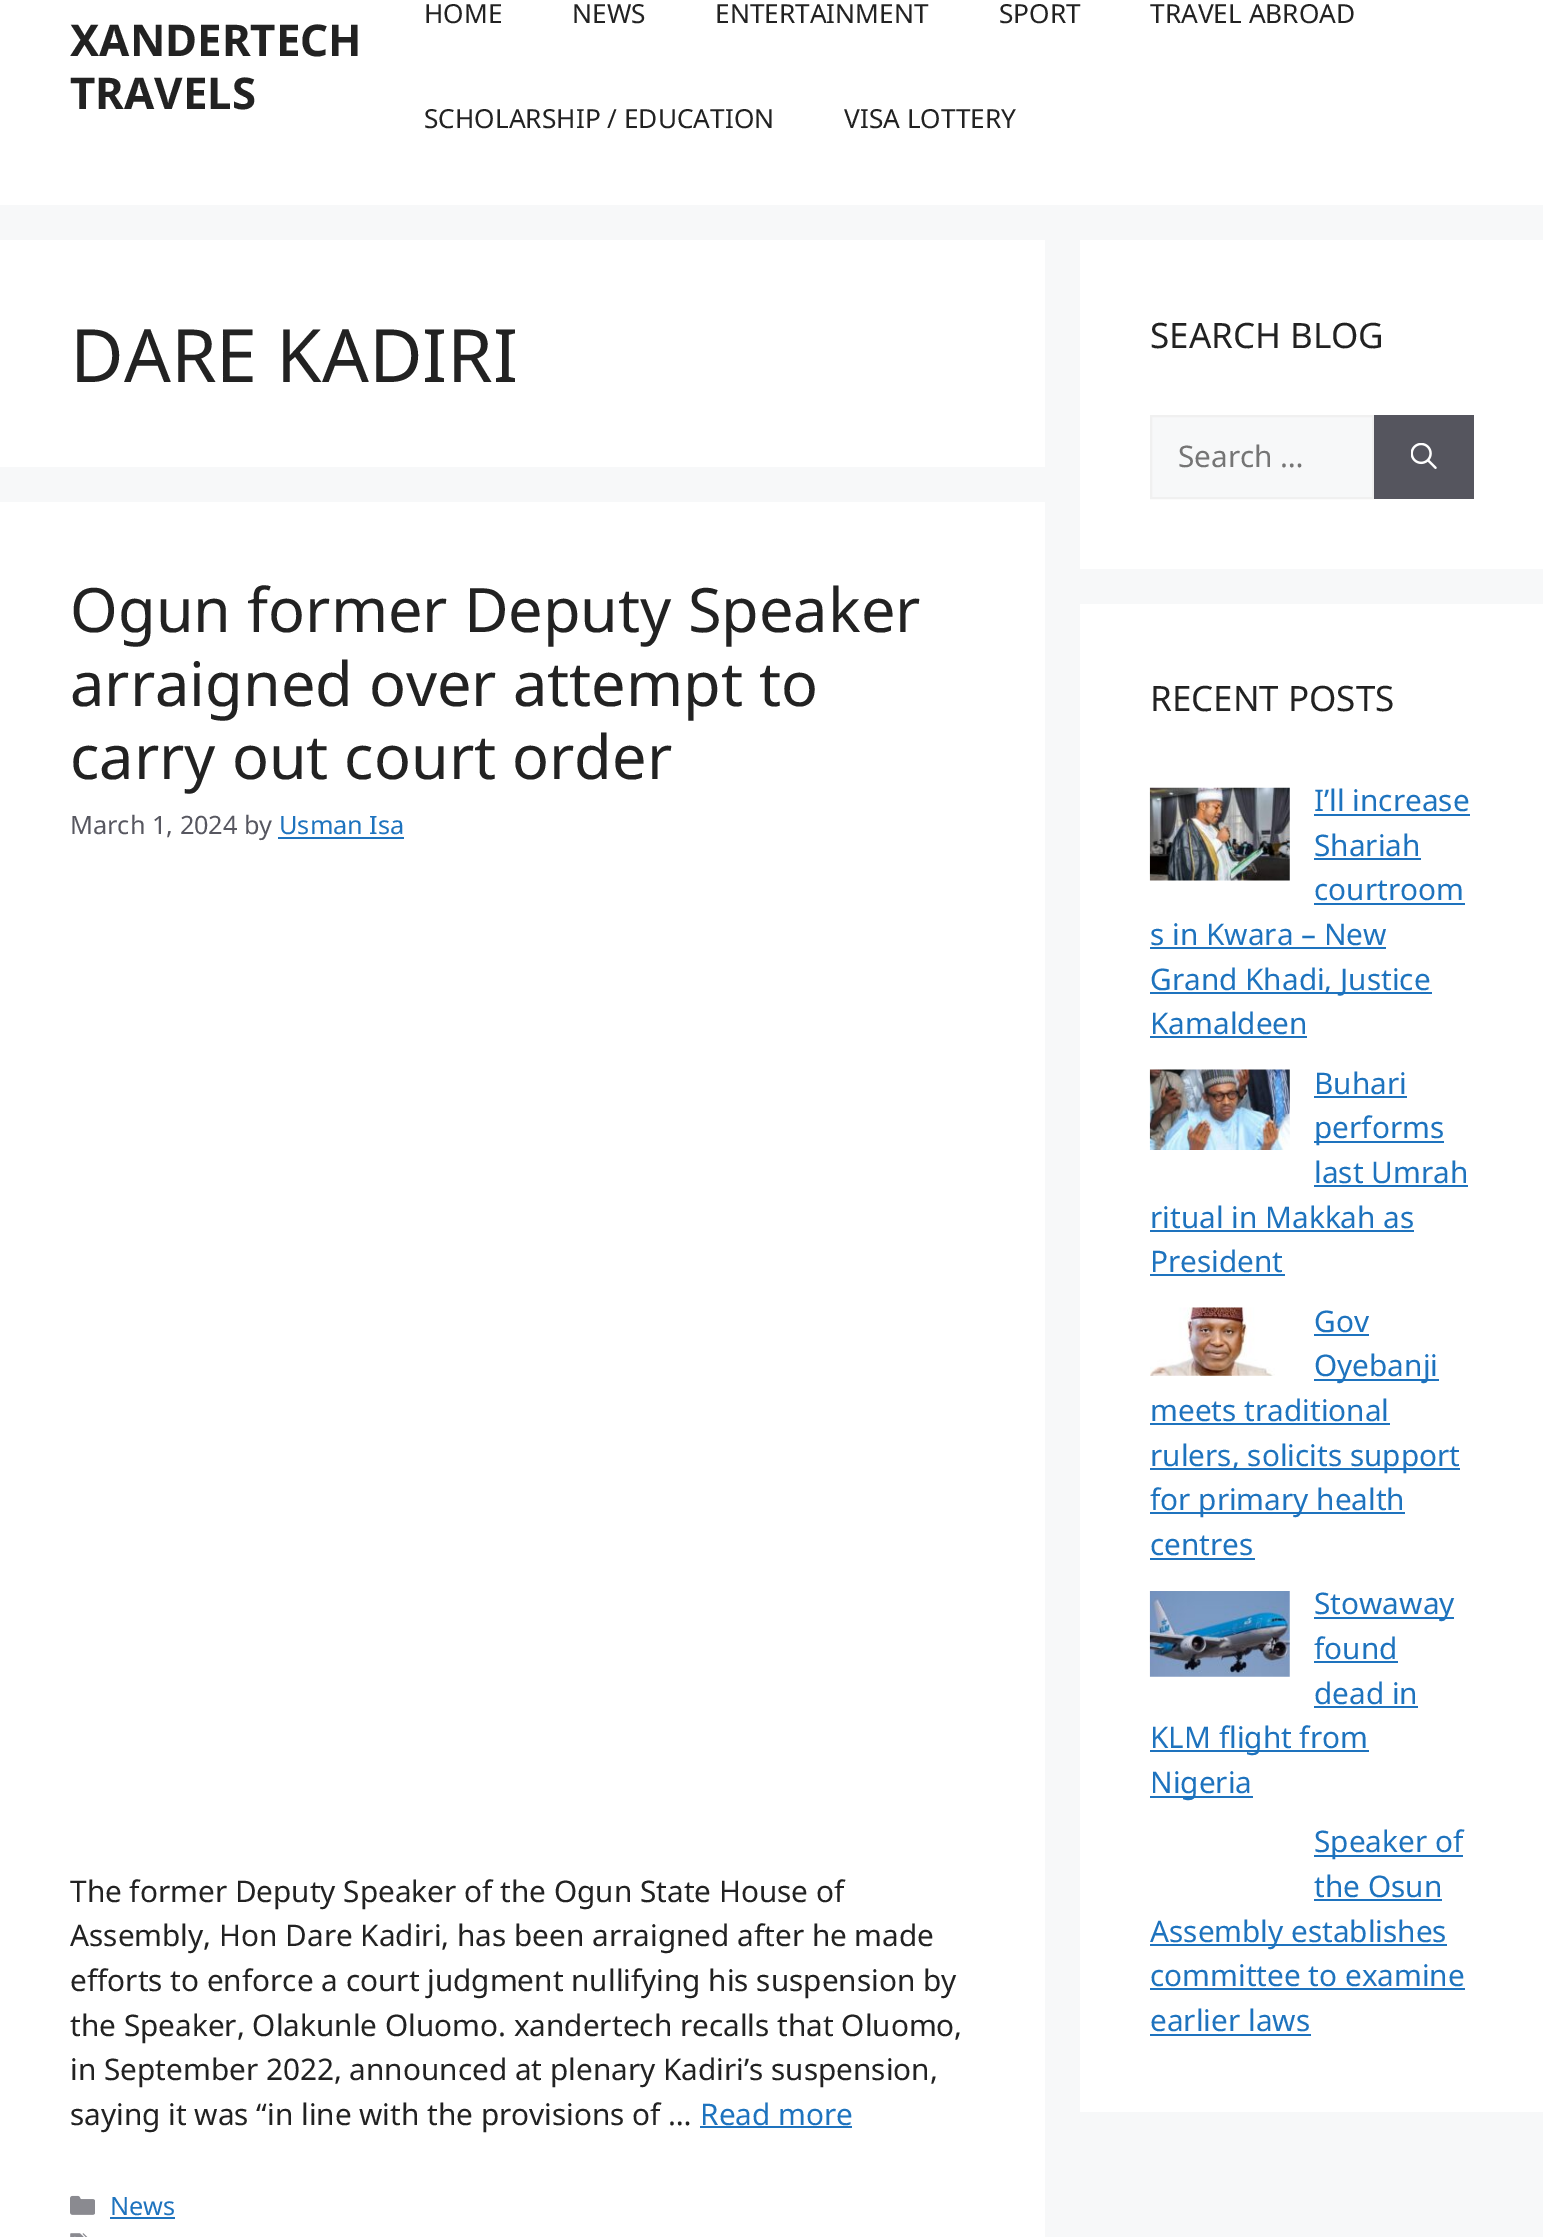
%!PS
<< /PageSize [1543 2237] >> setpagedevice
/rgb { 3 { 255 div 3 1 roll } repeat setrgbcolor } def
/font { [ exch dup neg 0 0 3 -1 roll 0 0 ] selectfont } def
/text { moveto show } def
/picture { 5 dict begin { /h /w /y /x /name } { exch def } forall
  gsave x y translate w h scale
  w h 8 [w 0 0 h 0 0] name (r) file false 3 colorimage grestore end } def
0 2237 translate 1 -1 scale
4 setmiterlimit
247 248 249 rgb
0 0 1543 2237 rectfill
255 255 255 rgb
0 0 1543 205 rectfill
0 240 1045 227 rectfill
0 502 1045 1735 rectfill
30 115 190 rgb
278 837 126 2 rectfill
700 2126 152 2 rectfill
(img_01.rgb) 70 2195 25 20 picture
110 2217 65 2 rectfill
(img_02.rgb) 70 2233 18 4 picture
255 255 255 rgb
1080 240 463 329 rectfill
247 248 249 rgb
1151 416 moveto 222 0 rlineto 0 82 rlineto -222 0 rlineto closepath gsave fill grestore
240 240 240 rgb
2 setlinewidth
stroke
85 85 94 rgb
1374 415 100 84 rectfill
(img_03.rgb) 1411 443 26 26 picture
255 255 255 rgb
1080 604 463 1508 rectfill
(img_04.rgb) 1149 787 141 94 picture
30 115 190 rgb
1314 814 156 2 rectfill
1314 858 107 2 rectfill
1314 903 151 2 rectfill
1150 947 236 2 rectfill
1150 992 282 2 rectfill
1150 1036 157 2 rectfill
(img_05.rgb) 1149 1069 141 81 picture
1314 1096 93 2 rectfill
1314 1141 130 2 rectfill
1314 1185 154 2 rectfill
1150 1230 264 2 rectfill
1150 1274 135 2 rectfill
(img_06.rgb) 1150 1307 125 69 picture
1314 1334 55 2 rectfill
1314 1379 125 2 rectfill
1150 1423 240 2 rectfill
1150 1468 310 2 rectfill
1150 1512 255 2 rectfill
1150 1558 105 2 rectfill
(img_07.rgb) 1149 1591 141 86 picture
1314 1617 140 2 rectfill
1314 1661 84 2 rectfill
1314 1706 104 2 rectfill
1150 1750 219 2 rectfill
1150 1796 103 2 rectfill
1314 1855 149 2 rectfill
1314 1899 128 2 rectfill
1150 1944 297 2 rectfill
1150 1988 315 2 rectfill
1150 2034 161 2 rectfill
/NotoSans-Bold 43.75 font
34 34 34 rgb
(XANDERTECH) 70 56 text
(TRAVELS) 70 109 text
/NotoSans-Regular 26.25 font
(HOME) 424 23 text
(NEWS) 572 23 text
(ENTERTAINMENT) 715 23 text
(SPORT) 999 23 text
(TRAVEL ABROAD) 1150 23 text
(SCHOLARSHIP / EDUCATION) 424 128 text
(VISA LOTTERY) 844 128 text
/NotoSans-Regular 73.5 font
(DARE KADIRI) 70 382 text
/NotoSans-Regular 61.25 font
(Ogun former Deputy Speaker) 70 632 text
(arraigned over attempt to) 70 706 text
(carry out court order) 70 779 text
/NotoSans-Regular 25.25 font
87 87 96 rgb
(March 1, 2024 by) 70 834 text
30 115 190 rgb
(Usman Isa) 279 834 text
/NotoSans-Regular 29.75 font
34 34 34 rgb
(The former Deputy Speaker of the Ogun State House of) 70 1902 text
(Assembly, Hon Dare Kadiri, has been arraigned after he made) 70 1946 text
(efforts to enforce a court judgment nullifying his suspension by) 70 1991 text
(the Speaker, Olakunle Oluomo. xandertech recalls that Oluomo,) 70 2036 text
(in September 2022, announced at plenary Kadiri’s suspension,) 70 2080 text
(saying it was “in line with the provisions of …) 70 2125 text
30 115 190 rgb
(Read more) 700 2125 text
/NotoSans-Regular 25.25 font
(News) 110 2215 text
/NotoSans-Regular 35 font
34 34 34 rgb
(SEARCH BLOG) 1150 348 text
/NotoSans-Regular 29.75 font
117 117 117 rgb
(Search …) 1178 467 text
/NotoSans-Regular 35 font
34 34 34 rgb
(RECENT POSTS) 1150 711 text
/NotoSans-Regular 29.75 font
30 115 190 rgb
(I’ll increase) 1314 811 text
(Shariah) 1314 856 text
(courtroom) 1314 900 text
(s in Kwara – New) 1150 945 text
(Grand Khadi, Justice) 1150 990 text
(Kamaldeen) 1150 1034 text
(Buhari) 1314 1094 text
(performs) 1314 1138 text
(last Umrah) 1314 1183 text
(ritual in Makkah as) 1150 1228 text
(President) 1150 1272 text
(Gov) 1314 1332 text
(Oyebanji) 1314 1376 text
(meets traditional) 1150 1421 text
(rulers, solicits support) 1150 1466 text
(for primary health) 1150 1510 text
(centres) 1150 1555 text
(Stowaway) 1314 1614 text
(found) 1314 1659 text
(dead in) 1314 1704 text
(KLM flight from) 1150 1748 text
(Nigeria) 1150 1793 text
(Speaker of) 1314 1852 text
(the Osun) 1314 1897 text
(Assembly establishes) 1150 1942 text
(committee to examine) 1150 1986 text
(earlier laws) 1150 2031 text
showpage
